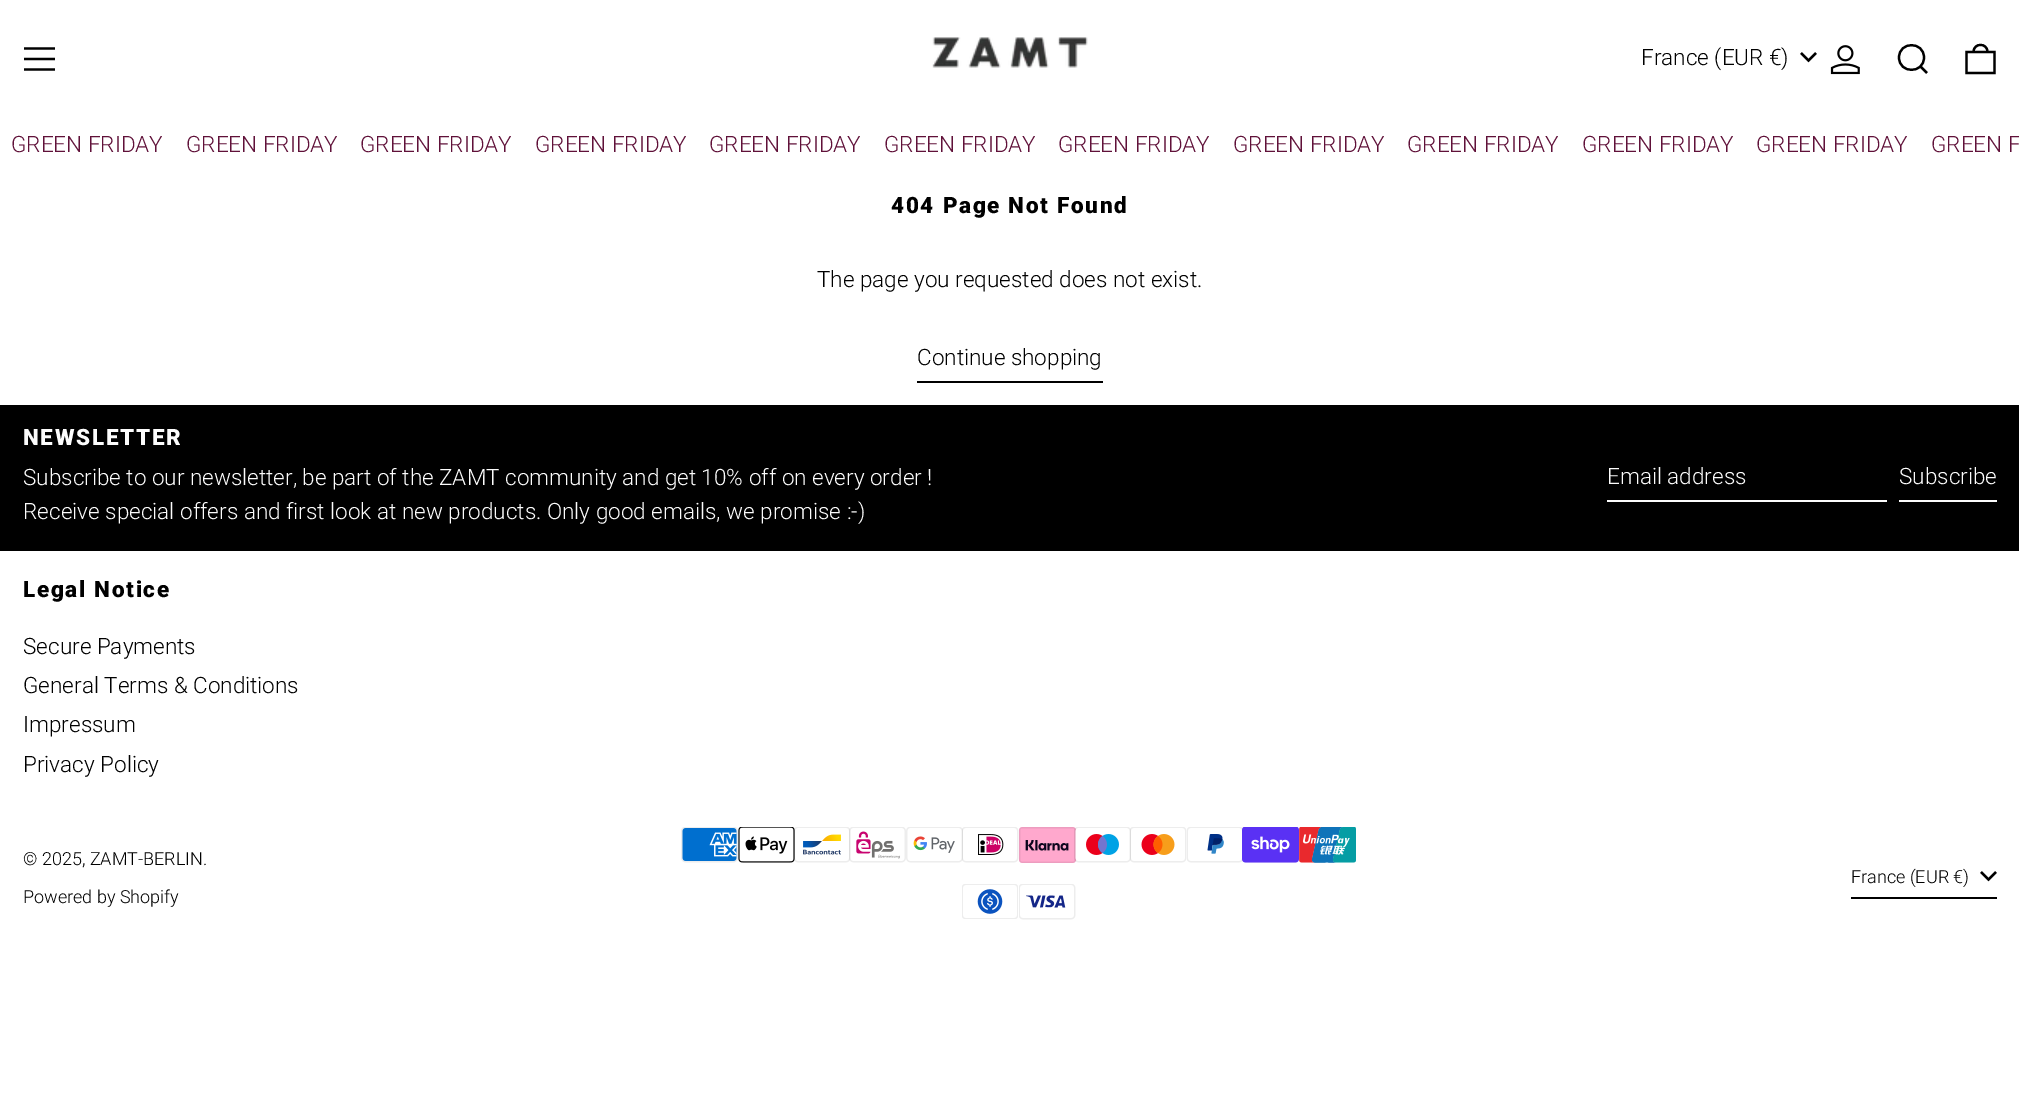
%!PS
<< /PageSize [2019 1108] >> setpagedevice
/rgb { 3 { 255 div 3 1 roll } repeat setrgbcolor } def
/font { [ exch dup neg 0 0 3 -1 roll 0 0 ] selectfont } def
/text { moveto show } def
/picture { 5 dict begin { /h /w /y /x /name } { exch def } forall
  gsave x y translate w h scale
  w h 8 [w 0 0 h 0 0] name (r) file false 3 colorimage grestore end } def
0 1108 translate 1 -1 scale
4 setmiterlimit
255 255 255 rgb
0 0 2019 1108 rectfill
0 0 0 rgb
2.2 setlinewidth
24 48.5 moveto 31 0 rlineto 24 59 moveto 31 0 rlineto 24 69.5 moveto 31 0 rlineto stroke
(img_01.rgb) 932 37 156 31 picture
1801 53 moveto 7.5 7.5 rlineto 7.5 -7.5 rlineto stroke
(img_02.rgb) 1830 45 30 30 picture
1899 57.5 moveto 0 16.5 25 16.5 25 0 rcurveto 0 -16.5 -25 -16.5 -25 0 rcurveto closepath 1920.5 66.5 moveto 6.5 6.5 rlineto stroke
1966.5 52 moveto 28 0 rlineto 0 21 rlineto -28 0 rlineto closepath 1987.5 52 moveto 0 -9.5 -14 -9.5 -14 0 rcurveto stroke
917 381 186 2 rectfill
0 405 2019 146 rectfill
252 252 252 rgb
1607 500 280 2 rectfill
1899 500 98 2 rectfill
(img_03.rgb) 681 827 57 36 picture
(img_04.rgb) 738 827 57 36 picture
(img_05.rgb) 794 827 57 36 picture
(img_06.rgb) 849 827 57 36 picture
(img_07.rgb) 906 827 57 36 picture
(img_08.rgb) 962 827 57 36 picture
(img_09.rgb) 1019 827 57 36 picture
(img_10.rgb) 1074 827 57 36 picture
(img_11.rgb) 1130 827 57 36 picture
(img_12.rgb) 1187 827 56 36 picture
(img_13.rgb) 1242 827 57 36 picture
(img_14.rgb) 1299 827 57 36 picture
(img_15.rgb) 962 884 56 35 picture
(img_16.rgb) 1019 884 57 36 picture
0 0 0 rgb
1851 897 146 2 rectfill
1981 872 moveto 7.5 7.5 rlineto 7.5 -7.5 rlineto stroke
/Roboto-Light 22.5 font
(France \(EUR €\)) 1641 65 text
96 17 57 rgb
(GREEN FRIDAY) 11 152 text
(GREEN FRIDAY) 186 152 text
(GREEN FRIDAY) 360 152 text
(GREEN FRIDAY) 535 152 text
(GREEN FRIDAY) 709 152 text
(GREEN FRIDAY) 884 152 text
(GREEN FRIDAY) 1058 152 text
(GREEN FRIDAY) 1233 152 text
(GREEN FRIDAY) 1407 152 text
(GREEN FRIDAY) 1582 152 text
(GREEN FRIDAY) 1756 152 text
(GREEN F) 1931 152 text
/Roboto-Black 22.5 font
0 0 0 rgb
891 213 moveto 1.7 0 (404 Page Not Found) ashow
/Roboto-Light 22.5 font
(The page you requested does not exist.) 817 287 text
(Continue shopping) 917 365 text
/Roboto-Black 22.5 font
252 252 252 rgb
23 445 moveto 1.7 0 (NEWSLETTER) ashow
/Roboto-Light 22.5 font
(Subscribe to our newsletter, be part of the ZAMT community and get 10% off on every order !) 23 485 text
(Receive special offers and first look at new products. Only good emails, we promise :-\)) 23 519 text
(Email address) 1607 484 text
(Subscribe) 1899 484 text
/Roboto-Black 22.5 font
0 0 0 rgb
23 597 moveto 1.7 0 (Legal Notice) ashow
/Roboto-Light 22.5 font
(Secure Payments) 23 654 text
(General Terms & Conditions) 23 693 text
(Impressum) 23 732 text
(Privacy Policy) 23 772 text
/Roboto-Light 18 font
(© 2025, ZAMT-BERLIN.) 23 865 text
(Powered by Shopify) 23 903 text
(France \(EUR €\)) 1851 883 text
showpage
